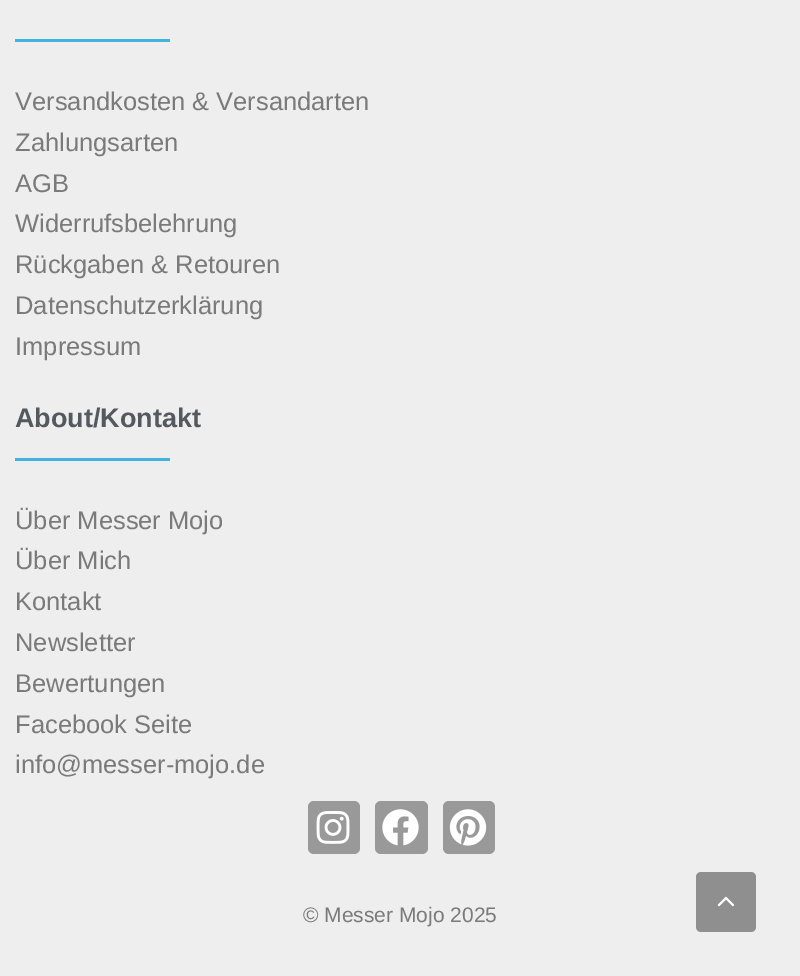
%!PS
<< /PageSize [800 976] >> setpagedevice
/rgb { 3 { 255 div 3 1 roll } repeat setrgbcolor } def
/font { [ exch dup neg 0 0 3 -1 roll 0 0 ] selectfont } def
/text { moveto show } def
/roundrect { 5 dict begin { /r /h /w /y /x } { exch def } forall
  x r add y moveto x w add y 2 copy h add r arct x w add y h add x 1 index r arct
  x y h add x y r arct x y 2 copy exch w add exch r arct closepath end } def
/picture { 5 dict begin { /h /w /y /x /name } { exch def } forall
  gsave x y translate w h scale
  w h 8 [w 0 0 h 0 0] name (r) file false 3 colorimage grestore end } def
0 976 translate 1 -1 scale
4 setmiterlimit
238 238 238 rgb
0 0 800 976 rectfill
64 179 223 rgb
15 39 155 3 rectfill
15 458 155 3 rectfill
153 153 153 rgb
308 801 52 53 6 roundrect fill
(img_01.rgb) 316 811 34 33 picture
375 801 53 53 6 roundrect fill
(img_02.rgb) 382 809 37 37 picture
443 801 52 53 6 roundrect fill
(img_03.rgb) 449 809 38 37 picture
143 143 143 rgb
696 872 60 60 5 roundrect fill
(img_04.rgb) 717 896 18 11 picture
/LiberationSans-Regular 25.5 font
122 122 122 rgb
(Versandkosten & Versandarten) 15 110 text
(Zahlungsarten) 15 151 text
(AGB) 15 192 text
(Widerrufsbelehrung) 15 232 text
(Rückgaben & Retouren) 15 273 text
(Datenschutzerklärung) 15 314 text
(Impressum) 15 355 text
/LiberationSans-Bold 27 font
84 89 95 rgb
(About/Kontakt) 15 427 text
/LiberationSans-Regular 25.5 font
122 122 122 rgb
(Über Messer Mojo) 15 529 text
(Über Mich) 15 569 text
(Kontakt) 15 610 text
(Newsletter) 15 651 text
(Bewertungen) 15 692 text
(Facebook Seite) 15 733 text
(info@messer-mojo.de) 15 773 text
/LiberationSans-Regular 21 font
(© Messer Mojo 2025) 303 922 text
showpage
